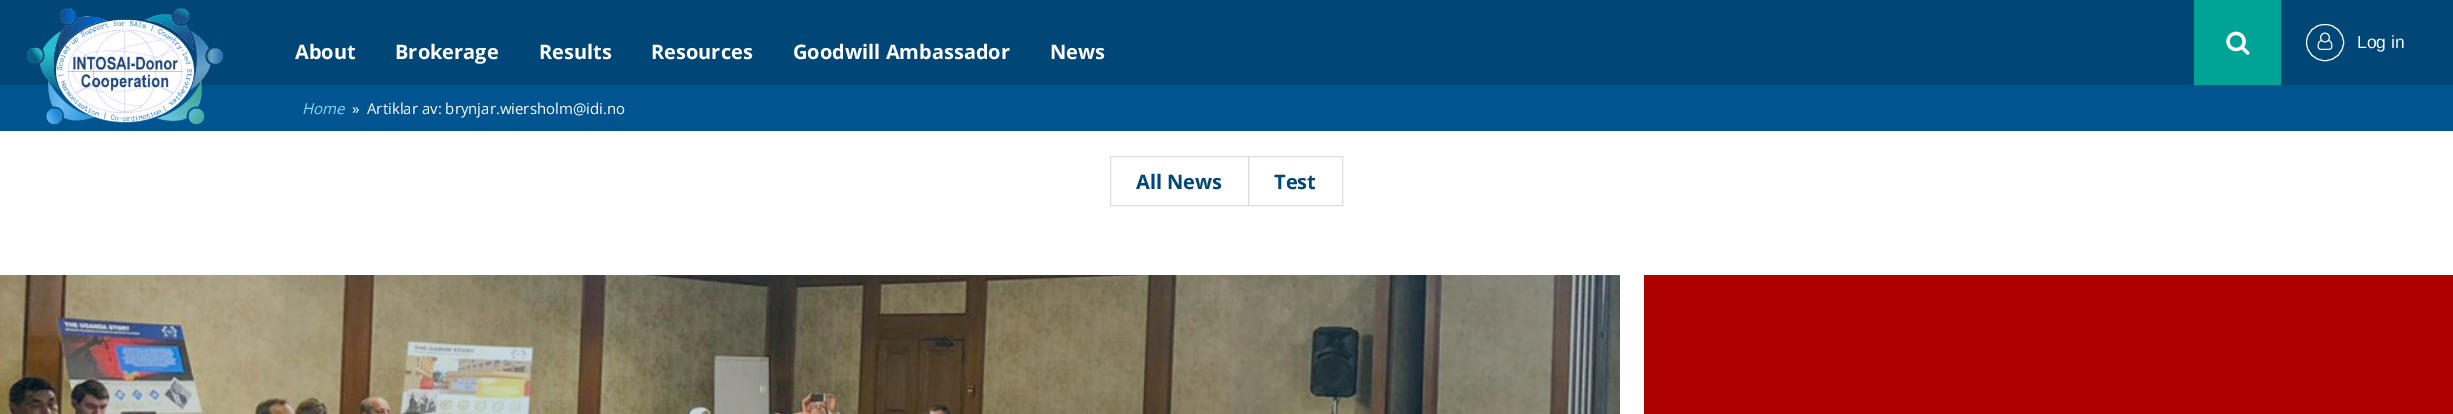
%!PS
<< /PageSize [2453 414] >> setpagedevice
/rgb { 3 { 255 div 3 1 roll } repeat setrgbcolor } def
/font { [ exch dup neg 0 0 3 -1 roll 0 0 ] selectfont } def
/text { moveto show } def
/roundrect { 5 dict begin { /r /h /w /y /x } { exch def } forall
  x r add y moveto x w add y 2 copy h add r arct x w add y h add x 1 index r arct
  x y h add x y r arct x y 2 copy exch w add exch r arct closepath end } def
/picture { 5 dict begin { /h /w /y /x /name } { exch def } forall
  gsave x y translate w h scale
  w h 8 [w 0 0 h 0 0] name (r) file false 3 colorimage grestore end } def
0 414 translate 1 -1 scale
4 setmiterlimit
255 255 255 rgb
0 0 2453 414 rectfill
0 70 119 rgb
0 0 2453 85 rectfill
0 85 145 rgb
0 85 2453 46 rectfill
(img_01.rgb) 27 8 197 117 picture
0 164 151 rgb
2194 0 87 85 rectfill
(img_02.rgb) 2226 31 24 24 picture
255 255 255 rgb
2306.5 24.5 37 36 18 roundrect stroke
(img_03.rgb) 2317 32 16 18 picture
222 222 222 rgb
1110.5 156.5 138 49 rectstroke
1248.5 156.5 94 49 rectstroke
(img_04.rgb) 0 275 1620 139 picture
175 0 0 rgb
1644 275 809 139 rectfill
/OpenSans-Bold 20 font
255 255 255 rgb
(About) 295 59 text
(Brokerage) 395 59 text
(Results) 539 59 text
(Resources) 651 59 text
(Goodwill Ambassador) 793 59 text
(News) 1050 59 text
/LiberationSans-Regular 17.5 font
(Log in) 2357 48 text
/OpenSans-Italic 15 font
137 216 236 rgb
(Home) 302 114 text
/OpenSans-Regular 15 font
255 255 255 rgb
(») 352 114 text
(Artiklar av: brynjar.wiersholm@idi.no) 367 114 text
/OpenSans-Bold 20 font
0 70 119 rgb
(All News) 1136 189 text
(Test) 1274 189 text
showpage
